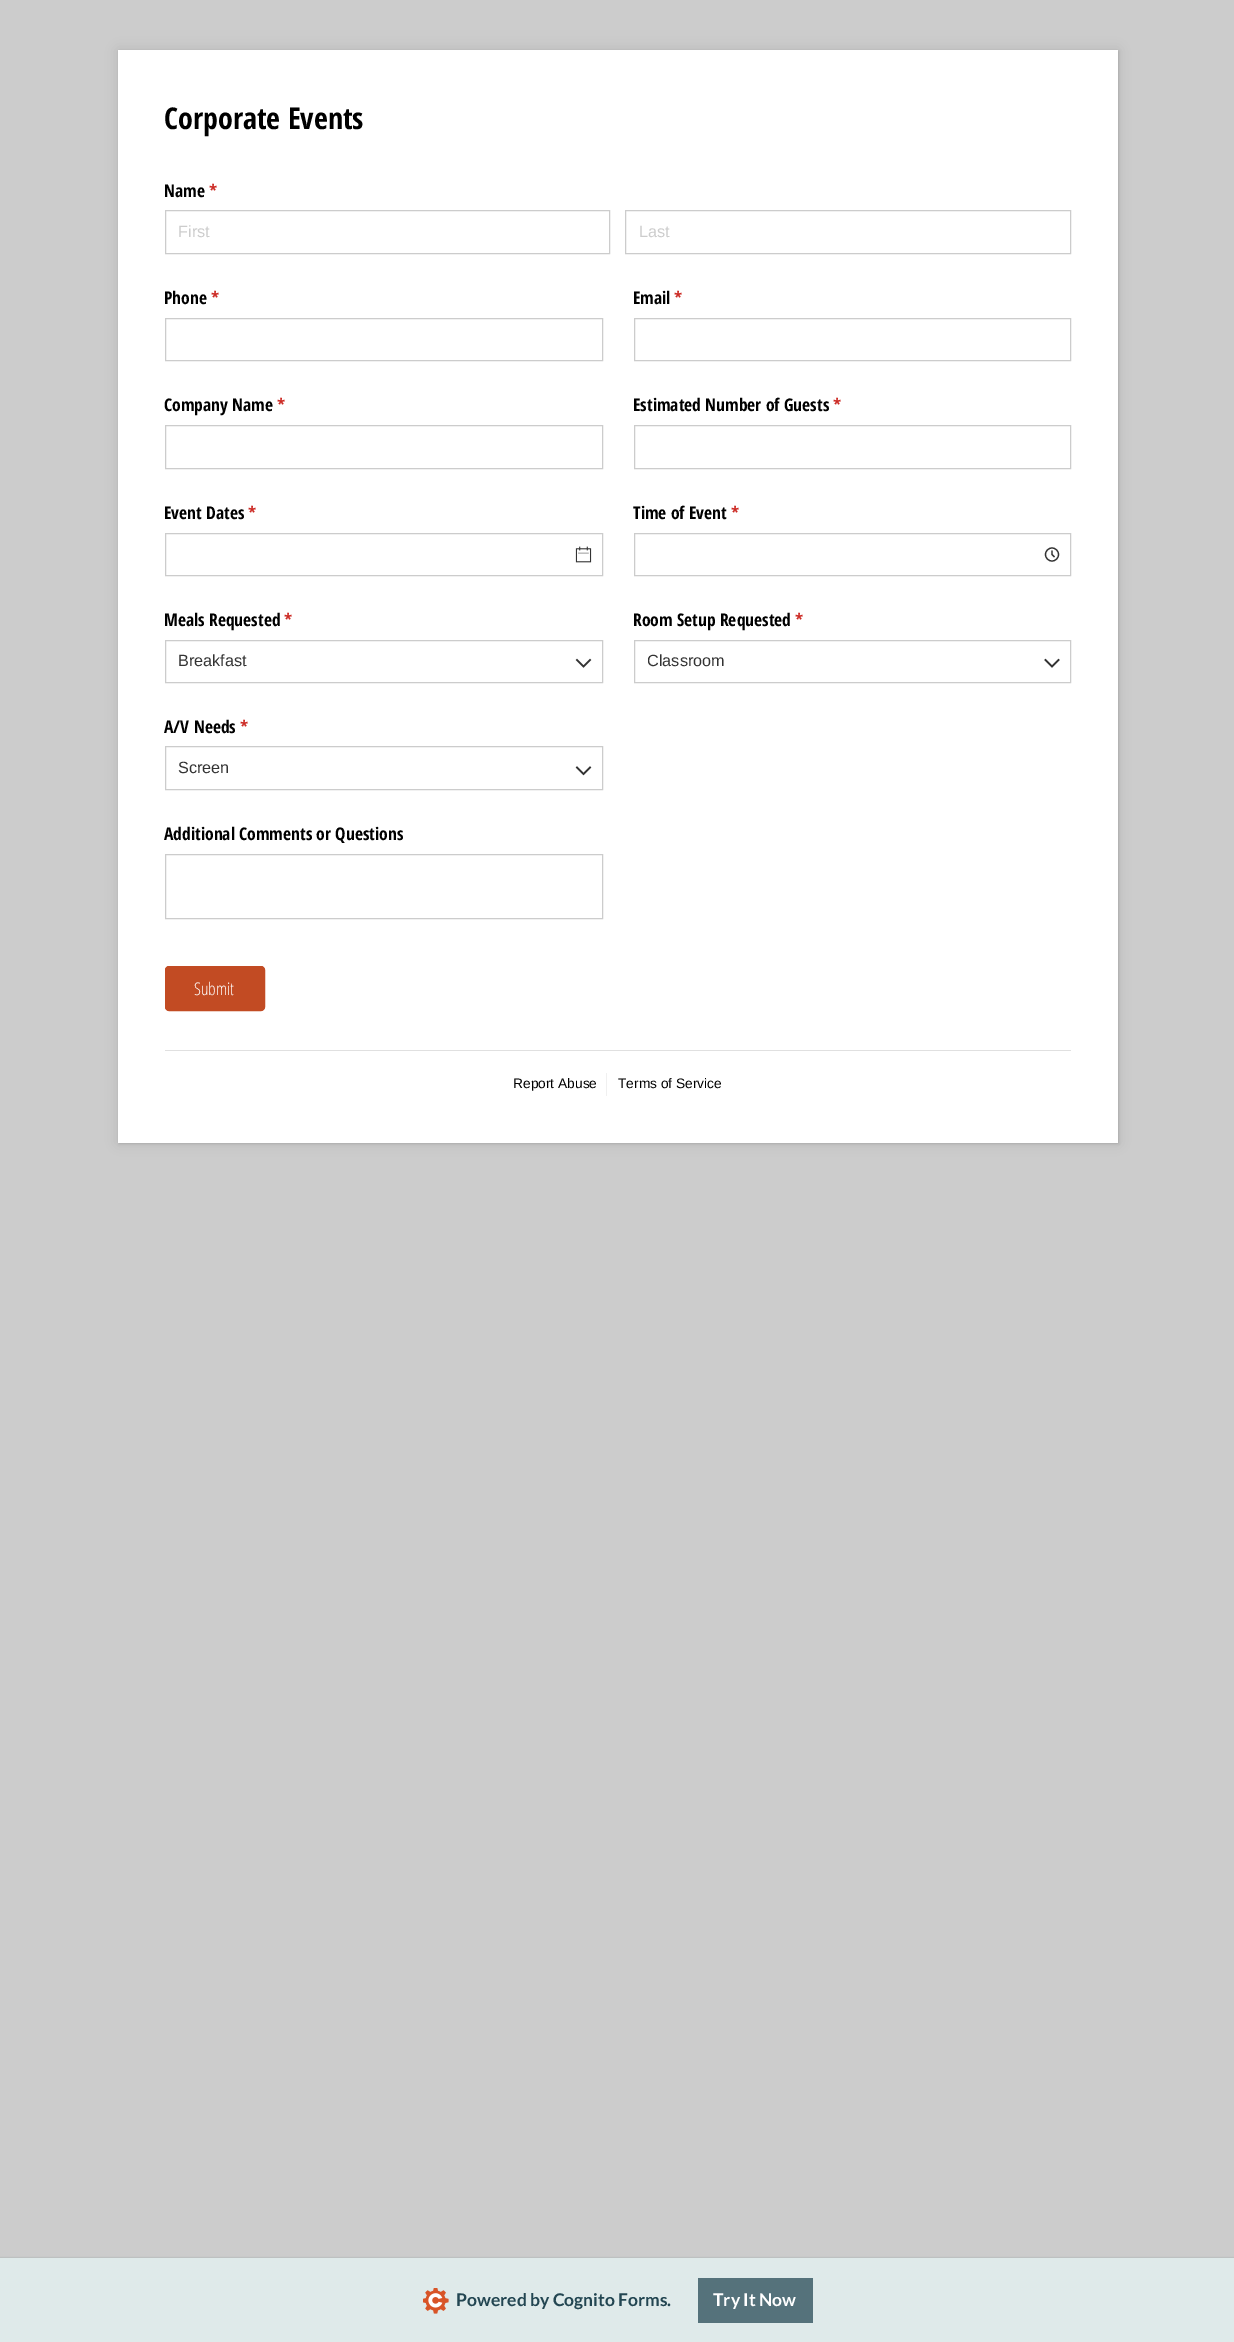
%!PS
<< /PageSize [1234 2342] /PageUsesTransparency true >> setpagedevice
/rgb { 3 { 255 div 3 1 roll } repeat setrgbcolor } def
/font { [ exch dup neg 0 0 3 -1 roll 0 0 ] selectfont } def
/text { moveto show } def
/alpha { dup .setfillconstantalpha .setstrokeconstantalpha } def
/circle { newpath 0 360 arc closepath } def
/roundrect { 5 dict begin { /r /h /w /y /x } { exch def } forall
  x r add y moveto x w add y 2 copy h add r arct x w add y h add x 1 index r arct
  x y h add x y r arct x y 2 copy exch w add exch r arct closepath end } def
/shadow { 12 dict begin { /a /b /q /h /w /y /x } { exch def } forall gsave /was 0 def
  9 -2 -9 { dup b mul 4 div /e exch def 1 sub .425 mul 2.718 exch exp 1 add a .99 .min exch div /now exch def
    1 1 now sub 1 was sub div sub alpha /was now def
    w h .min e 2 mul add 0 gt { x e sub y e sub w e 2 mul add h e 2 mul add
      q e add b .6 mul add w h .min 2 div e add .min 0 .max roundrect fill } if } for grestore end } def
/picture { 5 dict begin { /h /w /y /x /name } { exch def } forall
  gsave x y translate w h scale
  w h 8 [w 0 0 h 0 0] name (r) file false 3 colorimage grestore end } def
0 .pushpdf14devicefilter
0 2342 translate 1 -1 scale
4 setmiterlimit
204 204 204 rgb
0 0 1234 2342 rectfill
0 0 0 rgb
119 51 1000 1093 0 1 0.1 shadow
118 50 1000 1093 0 6 0.1 shadow
255 255 255 rgb
118 50 1000 1093 rectfill
204 204 204 rgb
165.5 210.5 444 43 rectstroke
625.5 210.5 445 43 rectstroke
165.5 318.5 437 42 rectstroke
634.5 318.5 436 42 rectstroke
165.5 425.5 437 43 rectstroke
634.5 425.5 436 43 rectstroke
165.5 533.5 437 42 rectstroke
(img_01.rgb) 575 546 17 17 picture
634.5 533.5 436 42 rectstroke
51 51 51 rgb
1.2 setlinewidth
1052 554.5 6.5 circle stroke
1052 550.5 moveto 0 4 rlineto 2.5 2.5 rlineto stroke
204 204 204 rgb
1 setlinewidth
165.5 640.5 437 42 rectstroke
51 51 51 rgb
1.5 setlinewidth
2 setlinecap
577 660 moveto 6.5 6.5 rlineto 6.5 -6.5 rlineto stroke
204 204 204 rgb
1 setlinewidth
0 setlinecap
634.5 640.5 436 42 rectstroke
51 51 51 rgb
1.5 setlinewidth
2 setlinecap
1045.5 660 moveto 6.5 6.5 rlineto 6.5 -6.5 rlineto stroke
204 204 204 rgb
1 setlinewidth
0 setlinecap
165.5 746.5 437 43 rectstroke
51 51 51 rgb
1.5 setlinewidth
2 setlinecap
577 767.5 moveto 6.5 6.5 rlineto 6.5 -6.5 rlineto stroke
204 204 204 rgb
1 setlinewidth
0 setlinecap
165.5 854.5 437 64 rectstroke
194 75 35 rgb
165.5 966.5 99 44 3.5 roundrect gsave fill grestore
stroke
224 224 224 rgb
165 1050 906 1 rectfill
240 240 240 rgb
606 1073 1 23 rectfill
85 114 123 rgb
0 2258 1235 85 0 1 0.4 shadow
223 234 234 rgb
0 2258 1234 84 rectfill
(img_02.rgb) 423 2288 26 26 picture
85 114 123 rgb
698 2278 115 45 rectfill
/OpenSansCondensed-Bold 30 font
0 0 0 rgb
(Corporate Events) 164 129 text
/OpenSansCondensed-Bold 17.5 font
(Name) 164 197 text
204 42 36 rgb
(*) 209 197 text
/LiberationSans-Regular 16.25 font
204 204 204 rgb
(First) 178 237 text
(Last) 639 237 text
/OpenSansCondensed-Bold 17.5 font
0 0 0 rgb
(Phone) 164 304 text
204 42 36 rgb
(*) 211 304 text
0 0 0 rgb
(Email) 633 304 text
204 42 36 rgb
(*) 674 304 text
0 0 0 rgb
(Company Name) 164 411 text
204 42 36 rgb
(*) 277 411 text
0 0 0 rgb
(Estimated Number of Guests) 633 411 text
204 42 36 rgb
(*) 833 411 text
0 0 0 rgb
(Event Dates) 164 519 text
204 42 36 rgb
(*) 248 519 text
0 0 0 rgb
(Time of Event) 633 519 text
204 42 36 rgb
(*) 731 519 text
0 0 0 rgb
(Meals Requested) 164 626 text
204 42 36 rgb
(*) 284 626 text
/LiberationSans-Regular 16.25 font
51 51 51 rgb
(Breakfast) 178 666 text
/OpenSansCondensed-Bold 17.5 font
0 0 0 rgb
(Room Setup Requested) 633 626 text
204 42 36 rgb
(*) 795 626 text
gsave
648 651 393 20 rectclip
/LiberationSans-Regular 16.25 font
51 51 51 rgb
(Classroom) 647 666 text
grestore
0 0 0 rgb
(A/V Needs) 164 733 text
204 42 36 rgb
(*) 240 733 text
/LiberationSans-Regular 16.25 font
51 51 51 rgb
(Screen) 178 773 text
/OpenSansCondensed-Bold 17.5 font
0 0 0 rgb
(Additional Comments or Questions) 164 840 text
/OpenSansCondensed-Light 17.5 font
255 255 255 rgb
(Submit) 194 995 text
/LiberationSans-Regular 13.75 font
0 0 0 rgb
(Report Abuse) 513 1088 text
(Terms of Service) 618 1088 text
/Lato-Bold 17.5 font
35 70 82 rgb
(Powered by Cognito Forms.) 456 2306 text
255 255 255 rgb
(Try It Now) 713 2306 text
.poppdf14devicefilter showpage
